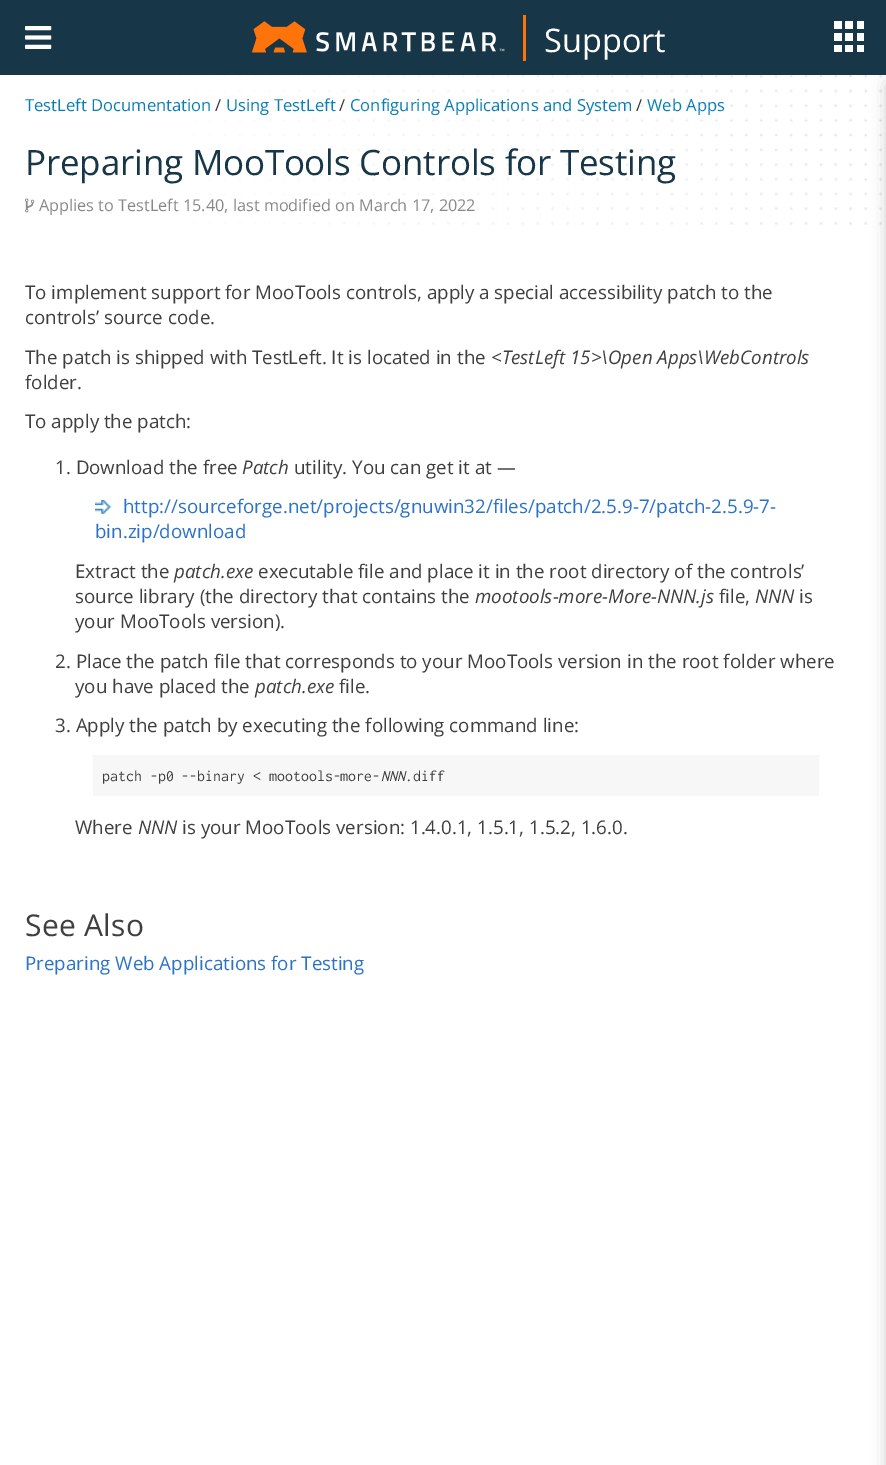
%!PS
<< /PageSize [886 1465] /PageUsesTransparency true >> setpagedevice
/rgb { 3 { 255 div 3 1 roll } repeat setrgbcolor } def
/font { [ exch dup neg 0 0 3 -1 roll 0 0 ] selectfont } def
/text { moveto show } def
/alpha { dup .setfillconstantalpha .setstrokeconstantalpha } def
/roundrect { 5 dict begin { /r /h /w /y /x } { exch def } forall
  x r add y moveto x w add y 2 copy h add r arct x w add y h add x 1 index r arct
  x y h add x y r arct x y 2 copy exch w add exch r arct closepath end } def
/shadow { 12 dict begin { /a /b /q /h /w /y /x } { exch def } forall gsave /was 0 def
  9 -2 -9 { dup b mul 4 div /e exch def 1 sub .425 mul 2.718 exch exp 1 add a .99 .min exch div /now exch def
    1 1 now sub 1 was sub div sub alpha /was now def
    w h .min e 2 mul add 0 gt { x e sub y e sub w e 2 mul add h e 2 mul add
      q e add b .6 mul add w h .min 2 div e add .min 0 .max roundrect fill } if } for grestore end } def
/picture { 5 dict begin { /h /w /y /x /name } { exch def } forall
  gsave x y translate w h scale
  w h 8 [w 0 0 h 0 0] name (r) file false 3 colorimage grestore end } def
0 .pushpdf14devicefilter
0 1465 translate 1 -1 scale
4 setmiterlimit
255 255 255 rgb
0 0 886 1465 rectfill
23 54 71 rgb
0 0 886 75 rectfill
(img_01.rgb) 25 26 27 23 picture
(img_02.rgb) 251 21 254 32 picture
255 115 11 rgb
523 15 3 46 rectfill
(img_03.rgb) 834 21 30 31 picture
(img_04.rgb) 180 75 703 150 picture
0 0 0 rgb
886 83 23 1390 0 7.5 0.18 shadow
(img_05.rgb) 25 198 10 15 picture
(img_06.rgb) 95 500 17 14 picture
247 247 247 rgb
93 755 726 41 rectfill
/OpenSans-Regular 32.5 font
255 255 255 rgb
(Support) 544 52 text
/OpenSans-Regular 16.6 font
9 126 178 rgb
(TestLeft Documentation) 25 111 text
51 51 51 rgb
(/) 215 111 text
9 126 178 rgb
(Using TestLeft) 226 111 text
51 51 51 rgb
(/) 339 111 text
9 126 178 rgb
(Configuring Applications and System) 350 111 text
51 51 51 rgb
(/) 636 111 text
9 126 178 rgb
(Web Apps) 647 111 text
/OpenSans-Regular 35 font
23 54 71 rgb
25 175 moveto -0.2 0 (Preparing MooTools Controls for Testing) ashow
/OpenSans-Regular 16.25 font
136 136 136 rgb
(Applies to TestLeft 15.40, last modified on March 17, 2022) 39 211 text
/OpenSans-Regular 18.75 font
63 63 63 rgb
(To implement support for MooTools controls, apply a special accessibility patch to the) 25 299 text
(controls’ source code.) 25 324 text
(The patch is shipped with TestLeft. It is located in the) 25 364 text
/OpenSans-Italic 18.75 font
(<TestLeft 15>\\Open Apps\\WebControls) 491 364 text
/OpenSans-Regular 18.75 font
(folder.) 25 389 text
(To apply the patch:) 25 428 text
(1. Download the free) 55 474 text
/OpenSans-Italic 18.75 font
(Patch) 242 474 text
/OpenSans-Regular 18.75 font
(utility. You can get it at —) 294 474 text
44 114 200 rgb
(http://sourceforge.net/projects/gnuwin32/files/patch/2.5.9-7/patch-2.5.9-7-) 123 513 text
(bin.zip/download) 95 538 text
63 63 63 rgb
(Extract the) 75 578 text
/OpenSans-Italic 18.75 font
(patch.exe) 174 578 text
/OpenSans-Regular 18.75 font
(executable file and place it in the root directory of the controls’) 258 578 text
(source library \(the directory that contains the) 75 603 text
/OpenSans-Italic 18.75 font
(mootools-more-More-NNN.js) 475 603 text
/OpenSans-Regular 18.75 font
(file,) 719 603 text
/OpenSans-Italic 18.75 font
(NNN) 755 603 text
/OpenSans-Regular 18.75 font
(is) 799 603 text
(your MooTools version\).) 75 628 text
(2. Place the patch file that corresponds to your MooTools version in the root folder where) 55 668 text
(you have placed the) 75 693 text
/OpenSans-Italic 18.75 font
(patch.exe) 255 693 text
/OpenSans-Regular 18.75 font
(file.) 339 693 text
(3. Apply the patch by executing the following command line:) 55 732 text
/Inconsolata-Regular 15.9 font
(patch -p0 --binary < mootools-more-) 102 781 text
/Inconsolata-Italic 15.9 font
(NNN) 381 781 text
/Inconsolata-Regular 15.9 font
(.diff) 405 781 text
/OpenSans-Regular 18.75 font
(Where) 75 834 text
/OpenSans-Italic 18.75 font
(NNN) 138 834 text
/OpenSans-Regular 18.75 font
(is your MooTools version: 1.4.0.1, 1.5.1, 1.5.2, 1.6.0.) 182 834 text
/OpenSans-Regular 30 font
25 936 moveto 0.25 0 (See Also) ashow
/OpenSans-Regular 18.75 font
44 114 200 rgb
(Preparing Web Applications for Testing) 25 970 text
.poppdf14devicefilter showpage
